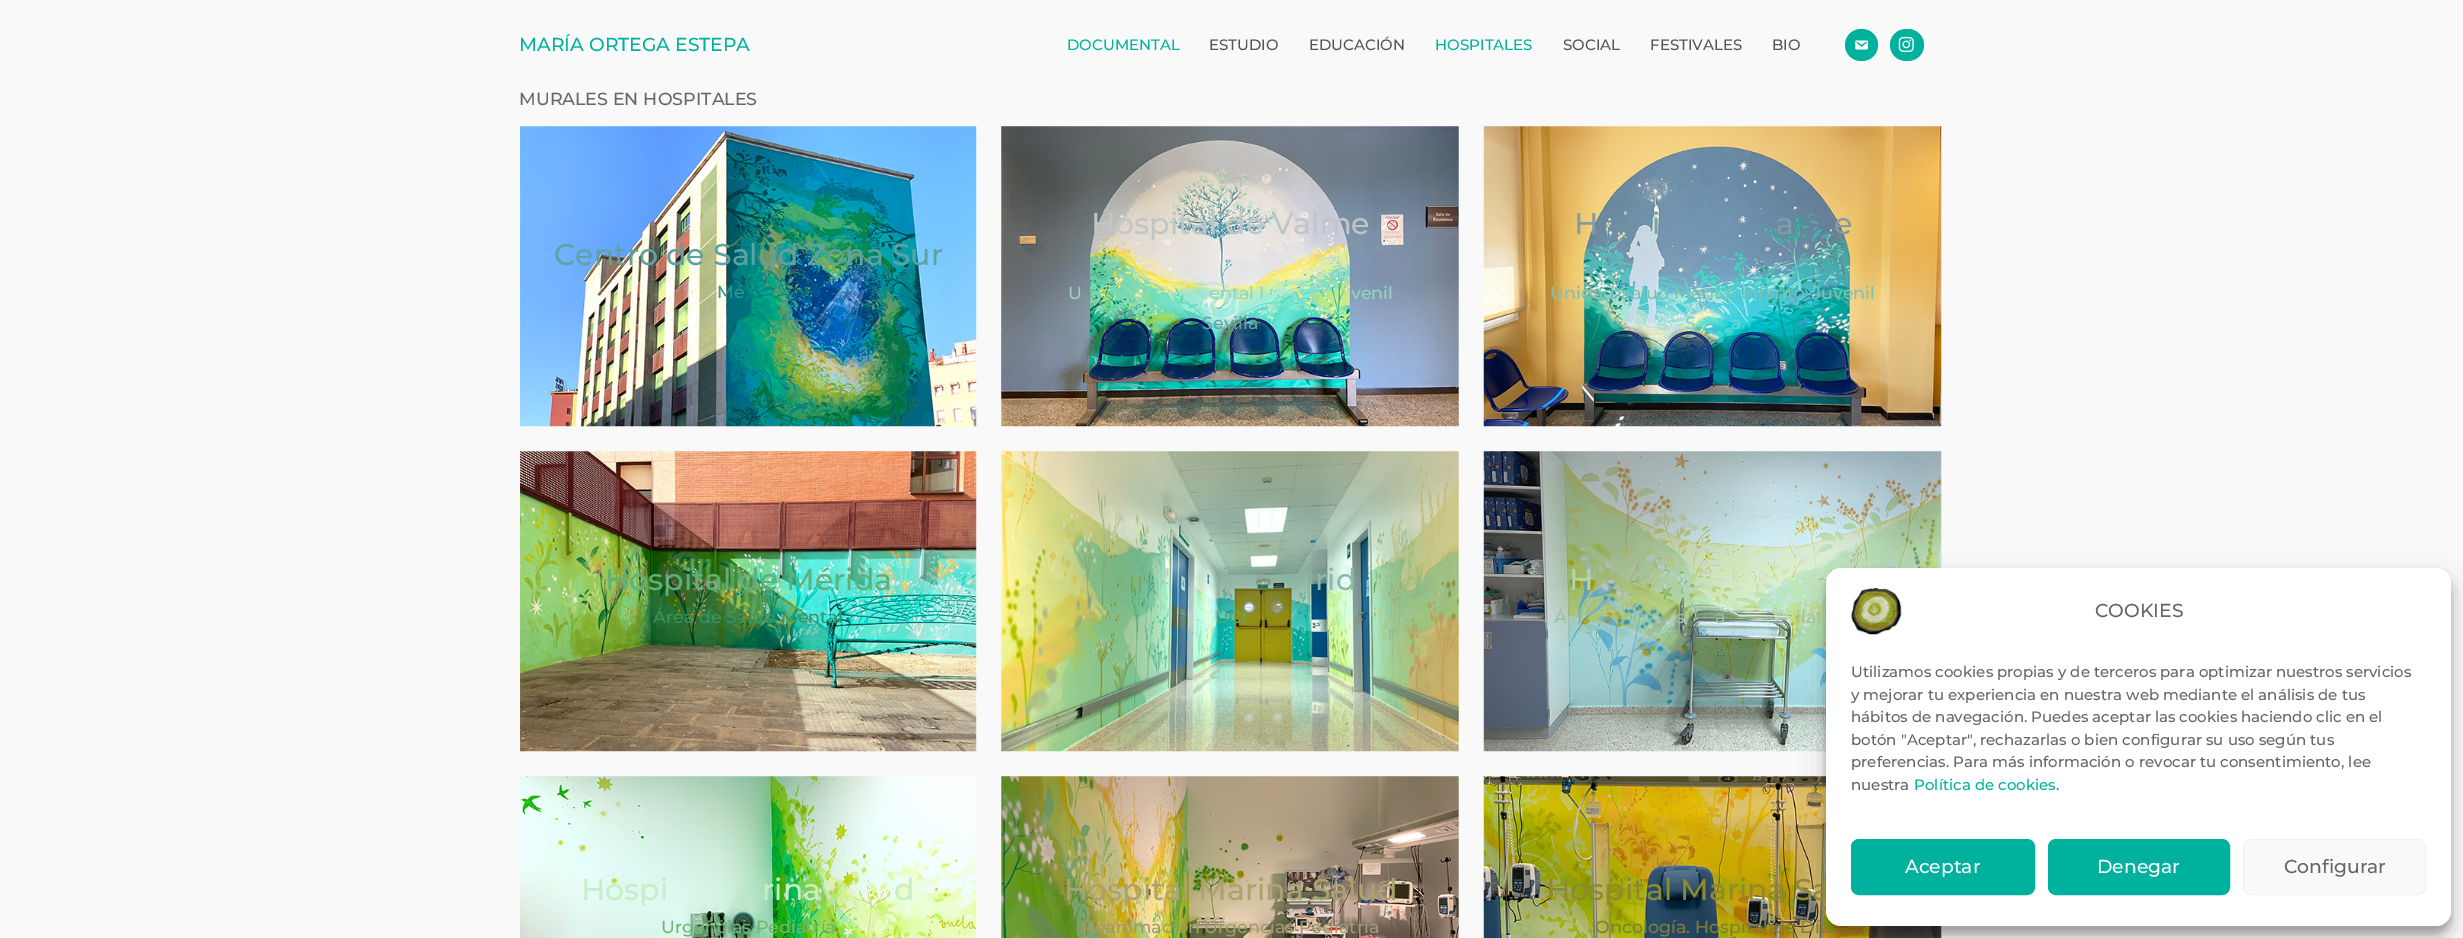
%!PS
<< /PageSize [2463 938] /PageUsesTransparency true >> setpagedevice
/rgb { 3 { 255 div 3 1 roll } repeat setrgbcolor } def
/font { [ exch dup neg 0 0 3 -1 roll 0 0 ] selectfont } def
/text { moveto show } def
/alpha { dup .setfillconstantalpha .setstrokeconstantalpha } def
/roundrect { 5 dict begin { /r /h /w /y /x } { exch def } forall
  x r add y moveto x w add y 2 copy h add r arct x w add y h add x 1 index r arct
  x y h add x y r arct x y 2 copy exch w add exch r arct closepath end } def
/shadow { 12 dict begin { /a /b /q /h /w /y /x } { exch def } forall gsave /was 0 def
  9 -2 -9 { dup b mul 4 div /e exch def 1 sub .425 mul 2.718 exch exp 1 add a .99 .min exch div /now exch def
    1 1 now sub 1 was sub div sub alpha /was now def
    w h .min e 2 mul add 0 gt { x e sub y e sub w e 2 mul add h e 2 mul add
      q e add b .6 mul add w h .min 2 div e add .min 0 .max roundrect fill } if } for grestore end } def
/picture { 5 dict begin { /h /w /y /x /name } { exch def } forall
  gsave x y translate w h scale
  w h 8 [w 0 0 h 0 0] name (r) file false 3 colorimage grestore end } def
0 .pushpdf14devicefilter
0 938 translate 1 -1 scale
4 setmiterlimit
249 249 249 rgb
0 0 2463 938 rectfill
0 177 158 rgb
1845 29 33 32 16 roundrect fill
(img_01.rgb) 1855 40 13 10 picture
1890 29 34 32 16 roundrect fill
(img_02.rgb) 1898 36 16 16 picture
(img_03.rgb) 520 126 457 301 picture
(img_04.rgb) 1001 126 458 301 picture
(img_05.rgb) 1483 126 459 301 picture
(img_06.rgb) 520 451 457 301 picture
(img_07.rgb) 1001 451 458 301 picture
(img_08.rgb) 1483 451 459 301 picture
(img_09.rgb) 520 776 457 162 picture
(img_10.rgb) 1001 776 458 162 picture
(img_11.rgb) 1483 776 459 162 picture
0 0 0 rgb
1826 575 625 359 15 4 0.23 shadow
1826 580 625 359 15 12.5 0.19 shadow
/Montserrat-Thin 18.75 font
0 177 158 rgb
(MARÍA ORTEGA ESTEPA) 519 51 text
/Montserrat-Thin 15 font
(DOCUMENTAL) 1067 50 text
85 85 85 rgb
(ESTUDIO) 1209 50 text
(EDUCACIÓN) 1309 50 text
0 177 158 rgb
(HOSPITALES) 1435 50 text
85 85 85 rgb
(SOCIAL) 1563 50 text
(FESTIVALES) 1650 50 text
(BIO) 1772 50 text
/Montserrat-Thin 17.5 font
102 102 102 rgb
(MURALES EN HOSPITALES) 519 105 text
/Montserrat-Thin 30 font
96 162 162 rgb
(Centro de Salud Zona Sur) 554 265 text
/Montserrat-Thin 17.5 font
47 151 143 rgb
(Mé) 717 298 text
/Montserrat-Thin 30 font
191 198 199 rgb
(Hospital de Valme) 1091 234 text
/Montserrat-Thin 17.5 font
154 211 180 rgb
(U) 1068 299 text
(ental I) 1209 299 text
(venil) 1351 299 text
96 162 162 rgb
(Sevilla) 1202 329 text
/Montserrat-Thin 30 font
131 157 165 rgb
(H) 1574 234 text
(i) 1652 234 text
(a) 1776 234 text
(e) 1834 234 text
/Montserrat-Thin 17.5 font
124 194 181 rgb
(Unidad Salud Mental Infanto-Juvenil) 1550 299 text
108 216 207 rgb
(S) 1685 329 text
(a) 1731 329 text
/Montserrat-Thin 30 font
94 176 125 rgb
(Hospital de Mérida) 605 590 text
/Montserrat-Thin 17.5 font
56 148 99 rgb
(Área de Salud Mental) 653 623 text
/Montserrat-Thin 30 font
143 185 164 rgb
(rid) 1315 590 text
/Montserrat-Thin 17.5 font
85 165 118 rgb
(UCI) 1215 623 text
/Montserrat-Thin 30 font
185 212 164 rgb
(H) 1569 590 text
/Montserrat-Thin 17.5 font
159 193 157 rgb
(Á) 1554 623 text
(s) 1676 623 text
(a) 1715 623 text
(ilat) 1796 623 text
/Montserrat-Thin 30 font
198 238 199 rgb
(Hospi) 581 900 text
(rina) 762 900 text
(d) 894 900 text
/Montserrat-Thin 17.5 font
112 182 115 rgb
(Urgencias Pediatría) 661 933 text
/Montserrat-Thin 30 font
171 162 111 rgb
(Hospital Marina Salud) 1064 900 text
/Montserrat-Thin 17.5 font
161 154 105 rgb
(Reanimación Urgencias Pediatría) 1082 933 text
/Montserrat-Thin 30 font
142 138 48 rgb
(Hospital Marina Sa) 1546 900 text
/Montserrat-Thin 17.5 font
125 127 54 rgb
(Oncología. Hospital de Día) 1595 933 text
255 255 255 rgb
1826 568 625 358 15 roundrect fill
(img_12.rgb) 1851 587 51 48 picture
/Montserrat-Thin 18.75 font
102 102 102 rgb
(COOKIES) 2095 617 text
/Montserrat-Thin 15 font
(Utilizamos cookies propias y de terceros para optimizar nuestros servicios) 1851 677 text
(y mejorar tu experiencia en nuestra web mediante el análisis de tus) 1851 700 text
(hábitos de navegación. Puedes aceptar las cookies haciendo clic en el) 1851 722 text
(botón "Aceptar", rechazarlas o bien configurar su uso según tus) 1851 745 text
(preferencias. Para más información o revocar tu consentimiento, lee) 1851 767 text
(nuestra) 1851 790 text
0 177 158 rgb
(Política de cookies) 1914 790 text
102 102 102 rgb
(.) 2056 790 text
0 177 158 rgb
1851.5 839.5 183 55 7.5 roundrect gsave fill grestore
stroke
/Montserrat-Thin 18.75 font
255 255 255 rgb
(Aceptar) 1905 873 text
0 177 158 rgb
2048.5 839.5 181 55 7.5 roundrect gsave fill grestore
stroke
255 255 255 rgb
(Denegar) 2097 873 text
249 249 249 rgb
2243.5 839.5 182 55 7.5 roundrect gsave fill grestore
242 242 242 rgb
stroke
102 102 102 rgb
(Configurar) 2284 873 text
.poppdf14devicefilter showpage
